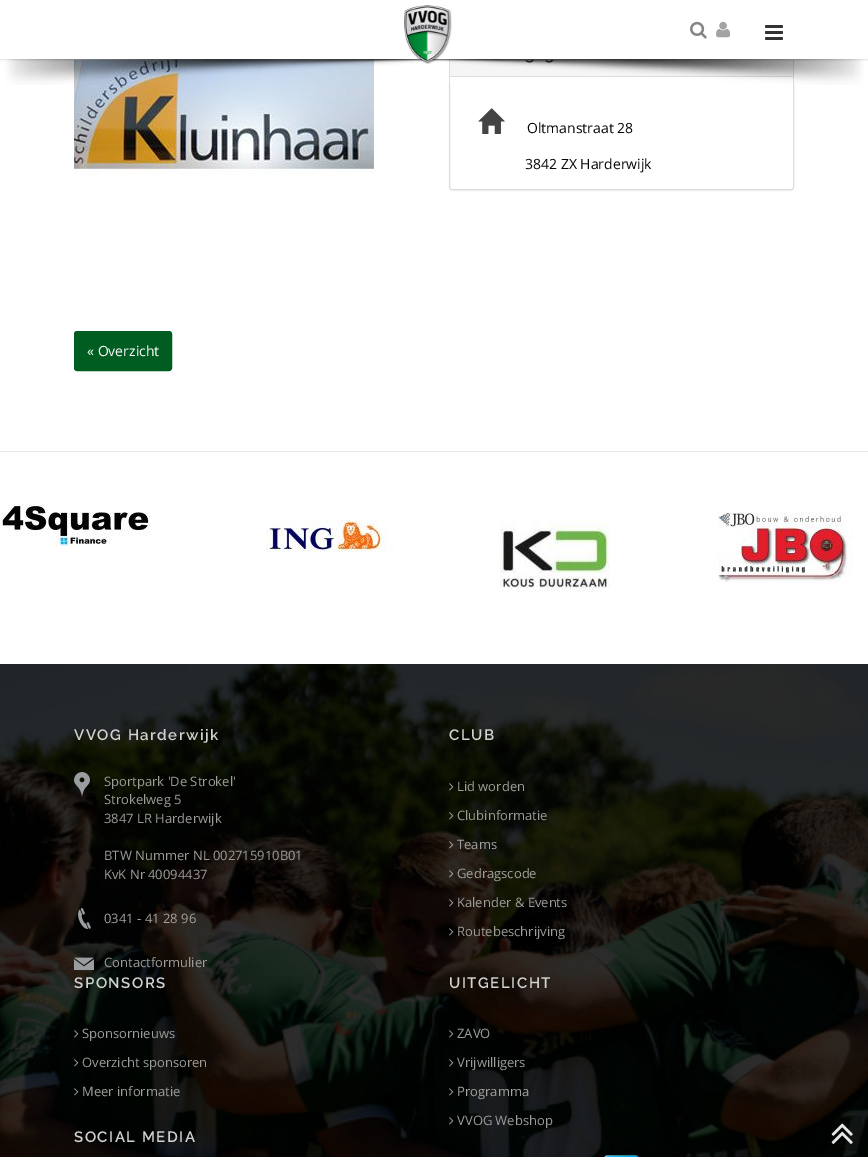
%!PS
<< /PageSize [868 1157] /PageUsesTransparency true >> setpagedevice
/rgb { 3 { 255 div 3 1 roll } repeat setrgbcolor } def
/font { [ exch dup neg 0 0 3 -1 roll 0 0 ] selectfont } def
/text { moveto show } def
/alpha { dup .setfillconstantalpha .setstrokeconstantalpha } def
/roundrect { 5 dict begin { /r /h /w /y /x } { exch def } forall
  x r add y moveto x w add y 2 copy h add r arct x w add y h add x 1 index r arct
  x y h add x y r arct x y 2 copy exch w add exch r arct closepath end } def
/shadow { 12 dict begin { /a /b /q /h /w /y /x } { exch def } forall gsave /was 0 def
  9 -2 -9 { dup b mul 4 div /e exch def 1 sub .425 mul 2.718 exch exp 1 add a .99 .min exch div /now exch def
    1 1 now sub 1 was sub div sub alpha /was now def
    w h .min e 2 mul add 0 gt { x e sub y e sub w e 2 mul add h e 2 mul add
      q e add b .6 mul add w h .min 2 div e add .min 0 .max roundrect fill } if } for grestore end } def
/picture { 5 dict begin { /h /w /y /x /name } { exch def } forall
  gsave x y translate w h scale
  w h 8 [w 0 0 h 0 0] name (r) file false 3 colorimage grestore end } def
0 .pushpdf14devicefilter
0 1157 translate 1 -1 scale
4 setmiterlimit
255 255 255 rgb
0 0 868 1157 rectfill
(img_06.rgb) 74 60 300 115 picture
0 0 0 rgb
449 32 345 159 3 0.5 0.05 shadow
255 255 255 rgb
449.5 31.5 344 158 2.5 roundrect gsave fill grestore
221 221 221 rgb
stroke
245 245 245 rgb
450 60 343 16 rectfill
0 0 0 rgb
0 0 868 60 0 1 0.1 shadow
255 255 255 rgb
0 0 868 59 rectfill
235 235 235 rgb
0 59 868 1 rectfill
221 221 221 rgb
450 76 343 1 rectfill
(img_05.rgb) 5 59 859 26 picture
(img_01.rgb) 404 5 48 59 picture
(img_02.rgb) 690 21 17 18 picture
(img_03.rgb) 716 21 15 17 picture
(img_04.rgb) 765 25 18 15 picture
230 230 230 rgb
0 451 868 1 rectfill
(img_07.rgb) 478 108 27 26 picture
0 93 34 rgb
74.5 331.5 97 39 2.5 roundrect gsave fill grestore
stroke
(img_08.rgb) 0 504 150 42 picture
(img_09.rgb) 266 519 128 34 picture
(img_10.rgb) 500 520 110 72 picture
(img_11.rgb) 716 510 137 73 picture
(img_12.rgb) 0 664 868 493 picture
(img_13.rgb) 74 772 19 25 picture
(img_14.rgb) 78 908 13 21 picture
(img_15.rgb) 74 957 20 13 picture
(img_16.rgb) 449 783 5 8 picture
(img_17.rgb) 449 812 5 8 picture
(img_18.rgb) 449 841 5 8 picture
(img_19.rgb) 449 870 5 8 picture
(img_20.rgb) 449 899 5 8 picture
(img_21.rgb) 449 928 5 8 picture
(img_22.rgb) 74 1030 5 8 picture
(img_23.rgb) 74 1059 5 8 picture
(img_24.rgb) 74 1088 5 8 picture
(img_25.rgb) 449 1030 5 8 picture
(img_26.rgb) 449 1059 5 8 picture
(img_24.rgb) 449 1088 5 8 picture
(img_24.rgb) 449 1117 5 8 picture
(img_27.rgb) 604 1155 35 2 picture
0.27 alpha
0 0 0 rgb
822 1116 40 35 2 roundrect fill
1 alpha
(img_28.rgb) 831 1123 22 21 picture
/OpenSans-Regular 14 font
5 5 5 rgb
(Oltmanstraat 28) 527 133 text
(3842 ZX Harderwijk) 525 169 text
255 255 255 rgb
(« Overzicht) 87 356 text
/Raleway-SemiBold 15 font
208 209 208 rgb
74 740 moveto 1.5 0 (VVOG Harderwijk) ashow
/OpenSans-Regular 13 font
156 157 153 rgb
(Sportpark 'De Strokel') 104 786 text
(Strokelweg 5) 104 804 text
(3847 LR Harderwijk) 104 823 text
(BTW Nummer NL 002715910B01) 104 860 text
(KvK Nr) 104 879 text
(40094437) 148 879 text
162 161 159 rgb
(0341 - 41 28 96) 104 923 text
156 157 153 rgb
(Contactformulier) 104 967 text
/Raleway-SemiBold 15 font
208 209 208 rgb
449 740 moveto 1.5 0 (CLUB) ashow
/OpenSans-Regular 13 font
156 157 153 rgb
(Lid worden) 457 791 text
(Clubinformatie) 457 820 text
162 161 159 rgb
(Teams) 457 849 text
(Gedragscode) 457 878 text
156 157 153 rgb
(Kalender & Events) 457 907 text
(Routebeschrijving) 457 936 text
/Raleway-SemiBold 15 font
208 209 208 rgb
74 988 moveto 1.5 0 (SPONSORS) ashow
/OpenSans-Regular 13 font
156 157 153 rgb
(Sponsornieuws) 82 1038 text
(Overzicht sponsoren) 82 1067 text
(Meer informatie) 82 1096 text
/Raleway-SemiBold 15 font
208 209 208 rgb
74 1142 moveto 1.5 0 (SOCIAL MEDIA) ashow
449 988 moveto 1.5 0 (UITGELICHT) ashow
/OpenSans-Regular 13 font
156 157 153 rgb
(ZAVO) 457 1038 text
(Vrijwilligers) 457 1067 text
162 161 159 rgb
(Programma) 457 1096 text
156 157 153 rgb
(VVOG Webshop) 457 1125 text
.poppdf14devicefilter showpage
